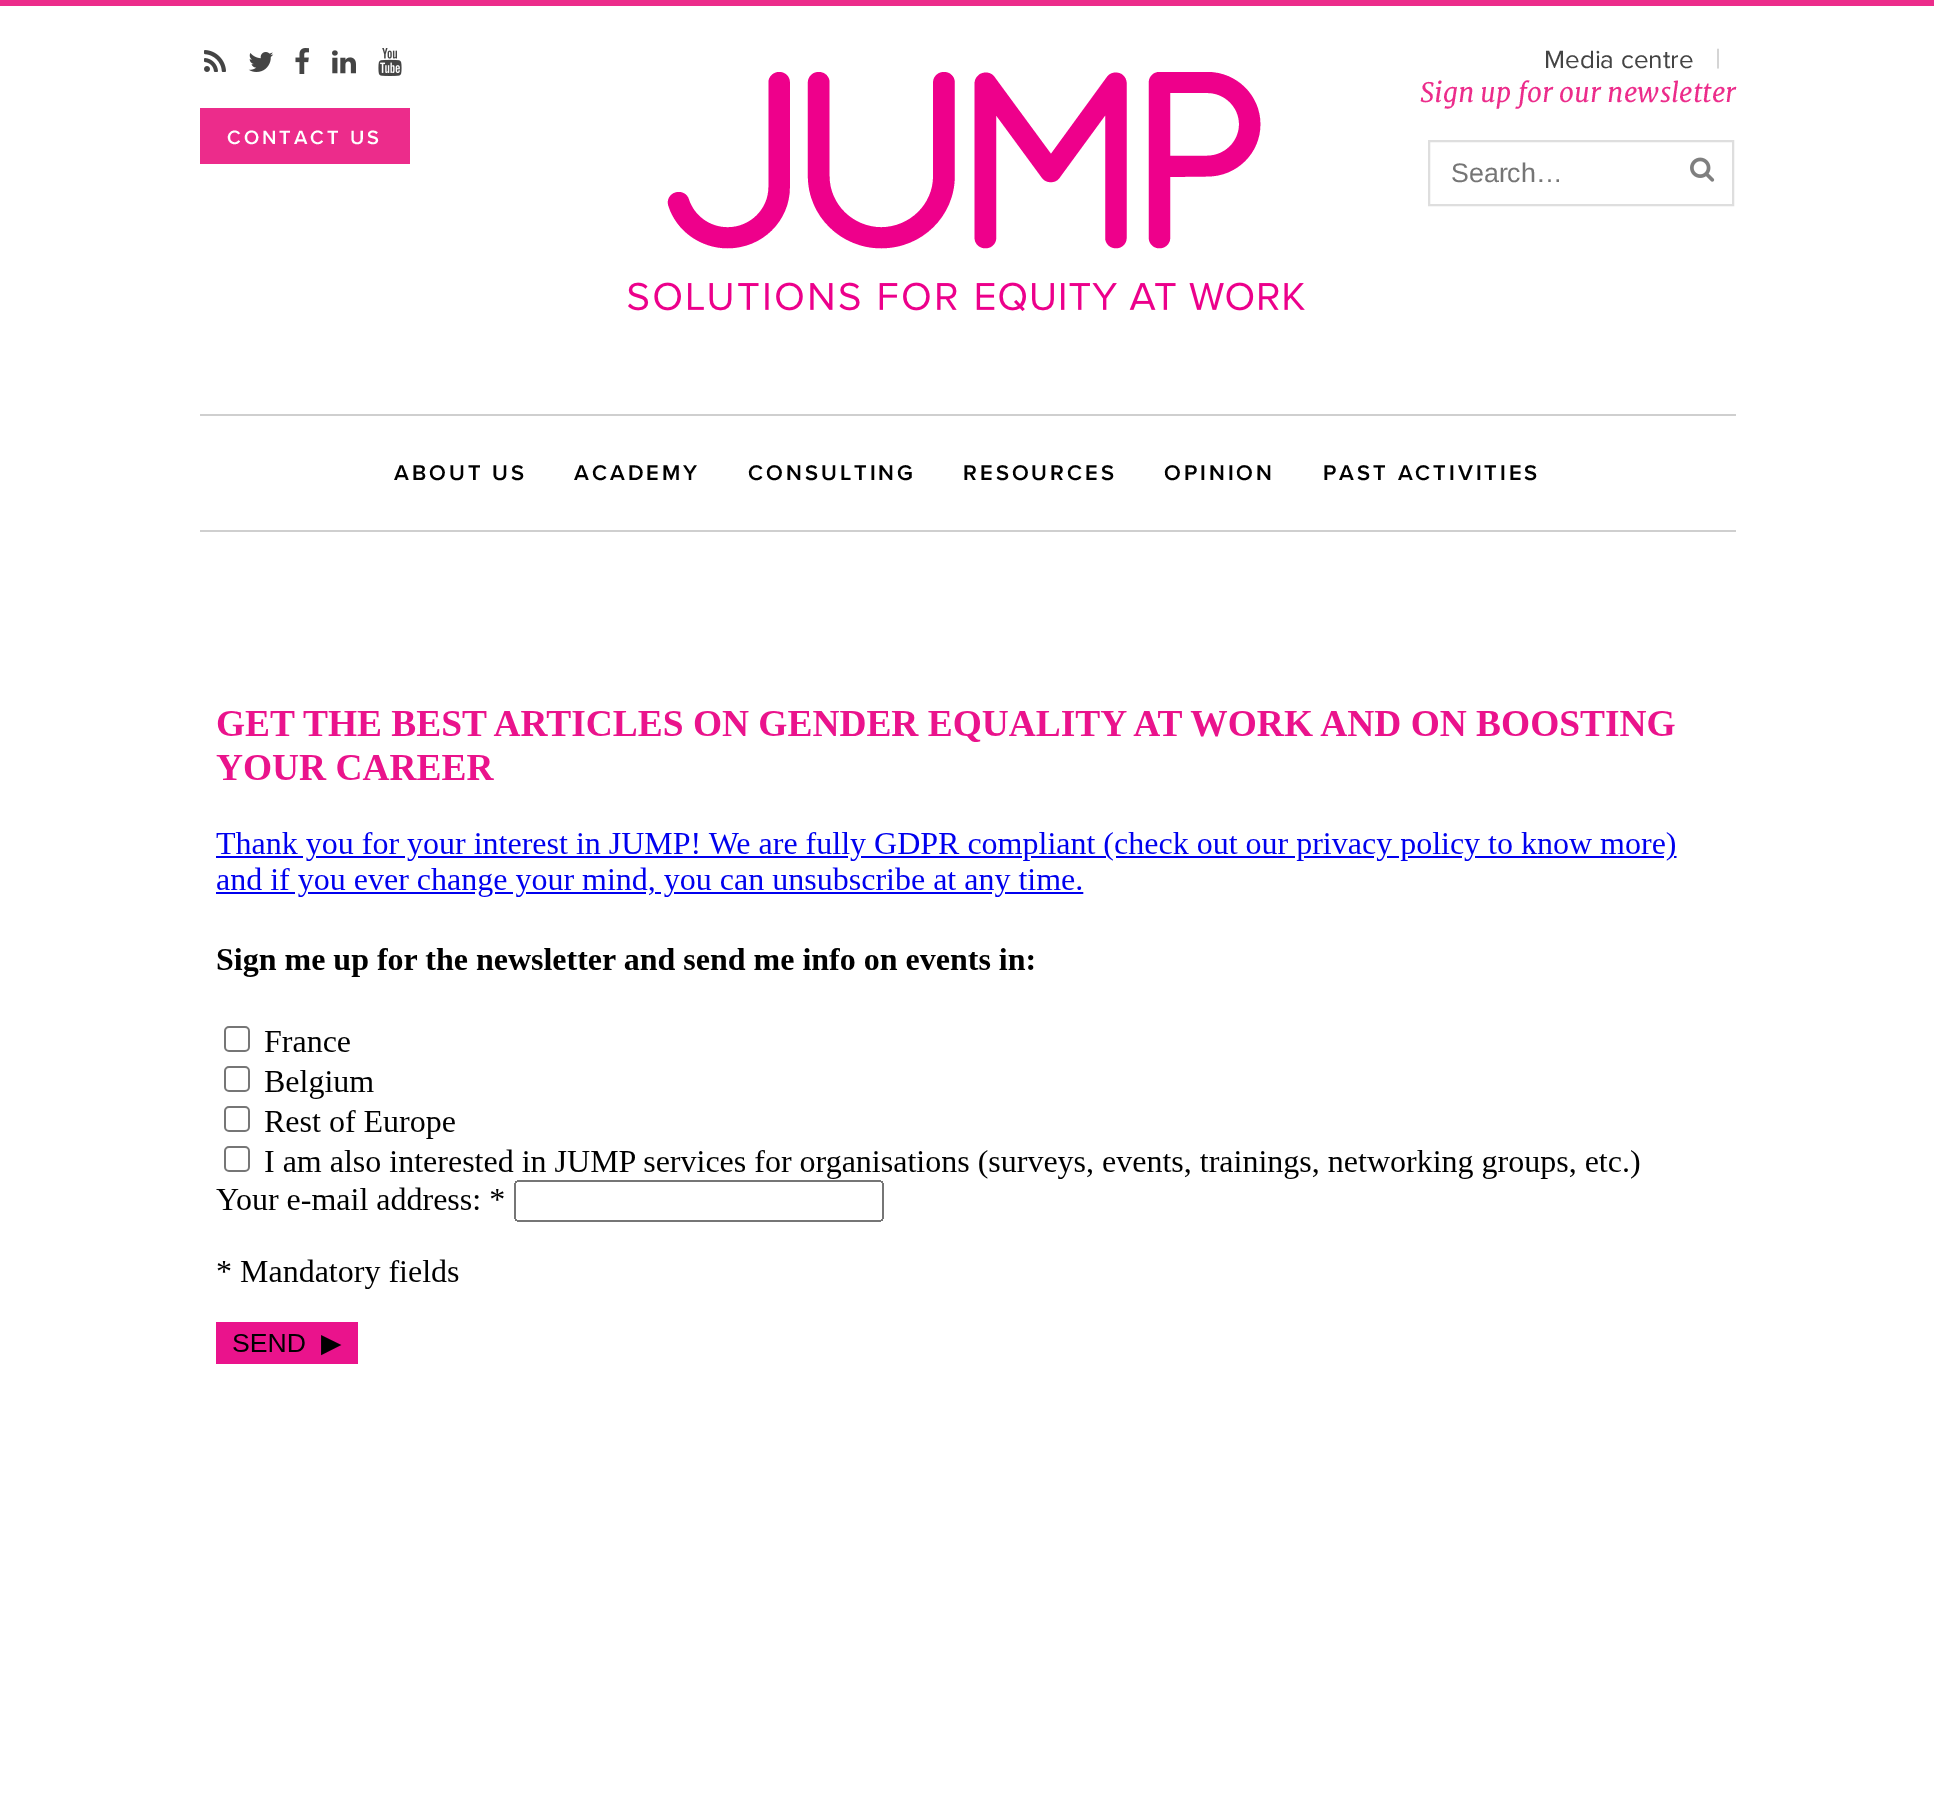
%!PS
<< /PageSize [1934 1794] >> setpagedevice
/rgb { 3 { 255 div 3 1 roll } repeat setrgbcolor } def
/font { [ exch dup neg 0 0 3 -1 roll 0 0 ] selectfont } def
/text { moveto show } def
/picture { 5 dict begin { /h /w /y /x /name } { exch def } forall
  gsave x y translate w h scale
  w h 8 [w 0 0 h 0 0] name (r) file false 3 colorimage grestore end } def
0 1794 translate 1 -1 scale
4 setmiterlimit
255 255 255 rgb
0 0 1934 1794 rectfill
236 44 139 rgb
0 0 1934 6 rectfill
(img_01.rgb) 204 50 22 22 picture
(img_02.rgb) 248 52 26 20 picture
(img_03.rgb) 295 48 14 26 picture
(img_04.rgb) 332 50 24 24 picture
(img_05.rgb) 378 48 24 28 picture
200 108 210 56 rectfill
(img_06.rgb) 628 72 677 239 picture
222 222 222 rgb
2 setlinewidth
1429 141 304 64 rectstroke
(img_07.rgb) 1690 157 25 25 picture
207 207 207 rgb
200 414 1536 2 rectfill
200 530 1536 2 rectfill
(img_08.rgb) 216 711 1461 653 picture
/ProximaNova-SemiBold 20 font
255 255 255 rgb
227 144 moveto 3 0 (CONTACT US) ashow
/ProximaNova-Regular 26 font
68 68 68 rgb
(Media centre) 1544 68 text
/ProximaNova-Regular 28 font
199 199 199 rgb
(|) 1715 68 text
/Merriweather-Italic 26.75 font
236 44 139 rgb
(Sign up for our newsletter) 1420 102 text
/LiberationSans-Regular 26.75 font
117 117 117 rgb
(Search…) 1451 182 text
/ProximaNova-SemiBold 22 font
1 1 1 rgb
394 480 moveto 3 0 (ABOUT US) ashow
574 480 moveto 3 0 (ACADEMY) ashow
748 480 moveto 3 0 (CONSULTING) ashow
963 480 moveto 3 0 (RESOURCES) ashow
1164 480 moveto 3 0 (OPINION) ashow
1323 480 moveto 3 0 (PAST ACTIVITIES) ashow
showpage
